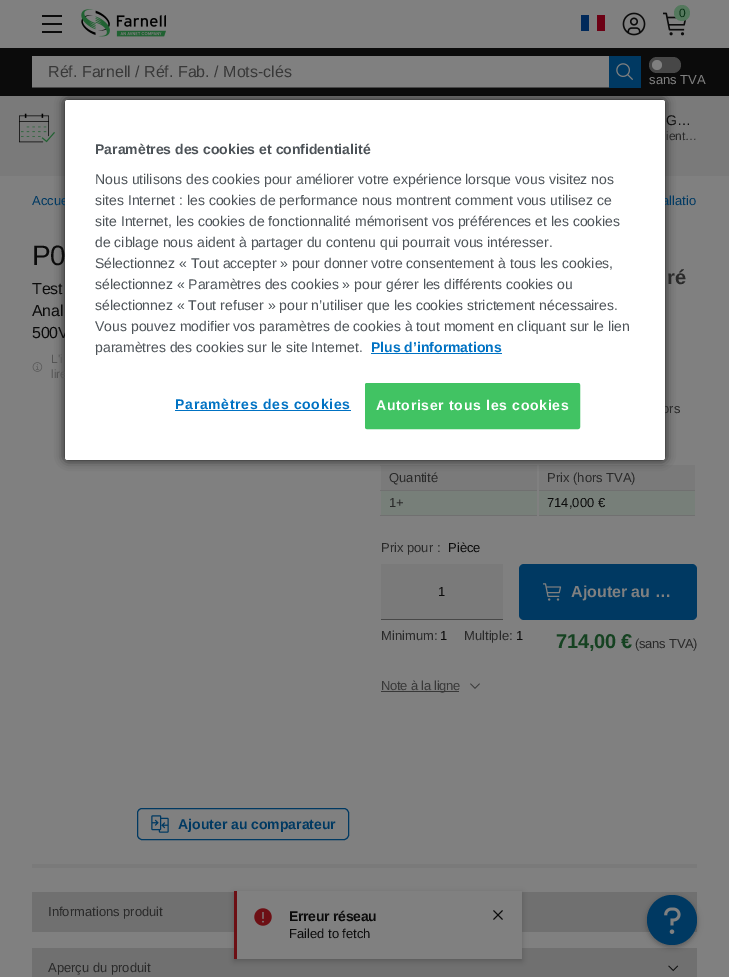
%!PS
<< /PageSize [729 977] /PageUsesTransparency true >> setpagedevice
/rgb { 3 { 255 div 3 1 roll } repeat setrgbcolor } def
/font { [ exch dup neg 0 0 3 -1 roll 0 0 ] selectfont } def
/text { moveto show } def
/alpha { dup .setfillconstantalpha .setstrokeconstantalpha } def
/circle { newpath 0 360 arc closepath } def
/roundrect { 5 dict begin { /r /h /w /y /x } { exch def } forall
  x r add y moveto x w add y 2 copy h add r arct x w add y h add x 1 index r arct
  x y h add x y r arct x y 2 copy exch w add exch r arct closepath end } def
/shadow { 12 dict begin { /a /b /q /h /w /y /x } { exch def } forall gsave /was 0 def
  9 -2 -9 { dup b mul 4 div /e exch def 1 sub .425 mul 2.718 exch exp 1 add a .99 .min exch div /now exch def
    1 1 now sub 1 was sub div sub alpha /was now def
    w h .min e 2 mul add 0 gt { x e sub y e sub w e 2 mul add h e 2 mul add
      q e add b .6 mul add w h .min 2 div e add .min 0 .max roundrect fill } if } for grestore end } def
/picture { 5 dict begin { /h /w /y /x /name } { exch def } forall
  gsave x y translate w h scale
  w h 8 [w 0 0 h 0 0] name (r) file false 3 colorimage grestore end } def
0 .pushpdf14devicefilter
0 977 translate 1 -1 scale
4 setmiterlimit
128 128 128 rgb
0 0 729 977 rectfill
11 11 11 rgb
42 15 20 2 rectfill
42 23 20 2 rectfill
42 31 20 2 rectfill
(img_01.rgb) 81 9 85 28 picture
0 41 90 rgb
581 15 8 16 rectfill
108 0 20 rgb
597 15 8 16 rectfill
(img_02.rgb) 622 12 24 24 picture
(img_03.rgb) 663 12 24 24 picture
84 120 93 rgb
682 13 8 circle fill
11 11 11 rgb
0 48 729 48 rectfill
128 128 128 rgb
32 56 577 31 rectfill
71 71 71 rgb
32 87 577 1 rectfill
0 57 98 rgb
609 56 32 32 rectfill
(img_04.rgb) 616 63 17 17 picture
71 71 71 rgb
649 57 32 16 8 roundrect fill
128 128 128 rgb
657 65 5 circle fill
122 122 122 rgb
0 96 729 80 rectfill
(img_05.rgb) 19 113 36 30 picture
(img_06.rgb) 32 362 11 10 picture
0 57 98 rgb
137.5 808.5 211 31 4.5 roundrect stroke
(img_07.rgb) 151 815 18 18 picture
122 122 122 rgb
381 466 156 24 rectfill
380 465 317 1 rectfill
128 128 128 rgb
537 465 2 1 rectfill
122 122 122 rgb
539 466 156 24 rectfill
112 112 112 rgb
380 490 317 1 rectfill
128 128 128 rgb
695 465 2 1 rectfill
119 127 121 rgb
381 491 156 24 rectfill
112 112 112 rgb
380 515 317 1 rectfill
128 128 128 rgb
537 490 2 27 rectfill
119 127 121 rgb
539 491 156 24 rectfill
128 128 128 rgb
695 490 2 27 rectfill
122 122 122 rgb
381 564 122 55 rectfill
71 71 71 rgb
381 619 122 1 rectfill
0 57 98 rgb
519 564 178 56 5 roundrect fill
(img_08.rgb) 543 583 19 18 picture
56 56 56 rgb
381 691 78 1 rectfill
(img_09.rgb) 470 683 10 6 picture
122 122 122 rgb
32 864 665 4 rectfill
112 112 112 rgb
32 892 665 40 rectfill
32 948 665 29 rectfill
(img_10.rgb) 668 965 11 7 picture
0 0 0 rgb
234 893 288 68 0 3 0.2 shadow
128 128 128 rgb
237 891 285 68 rectfill
109 15 20 rgb
234 891 3 68 rectfill
(img_11.rgb) 254 908 18 18 picture
(img_12.rgb) 493 910 10 10 picture
0 0 0 rgb
647 897 50 50 25 3 0.3 shadow
0 57 98 rgb
672 920 25 circle fill
(img_13.rgb) 664 907 17 27 picture
0 0 0 rgb
65 100 600 360 2.5 5 0.8 shadow
/LiberationSans-Regular 12 font
7 48 20 rgb
(0) 679 17 text
/LiberationSans-Regular 16 font
56 56 56 rgb
(Réf. Farnell / Réf. Fab. / Mots-clés) 48 77 text
/LiberationSans-Regular 13 font
128 128 128 rgb
(sans TVA) 649 84 text
/LiberationSans-Regular 14 font
11 11 11 rgb
666 125 moveto -0.25 0 (G…) ashow
/LiberationSans-Regular 12 font
41 41 41 rgb
(ient…) 666 140 text
/LiberationSans-Regular 13 font
0 57 98 rgb
(Accue) 32 205 text
(allatio) 662 205 text
/LiberationSans-Regular 28 font
11 11 11 rgb
32 265 moveto -0.25 0 (P0) ashow
/LiberationSans-Regular 16 font
32 294 moveto -0.25 0 (Test) ashow
32 316 moveto -0.25 0 (Anal) ashow
32 338 moveto -0.25 0 (500V) ashow
/LiberationSans-Regular 12 font
84 84 84 rgb
(L'i) 51 363 text
(lire) 51 378 text
/LiberationSans-Bold 14 font
0 57 98 rgb
(Ajouter au comparateur) 178 829 text
/LiberationSans-Bold 20 font
41 41 41 rgb
667 284 moveto -0.25 0 (ré) ashow
/LiberationSans-Regular 13 font
(ors) 662 413 text
(Quantité) 389 482 text
(Prix \(hors TVA\)) 547 482 text
(1+) 389 507 text
11 11 11 rgb
(714,000 €) 547 507 text
41 41 41 rgb
(Prix pour :) 381 552 text
11 11 11 rgb
(Pièce) 448 552 text
(1) 438 596 text
/LiberationSans-Bold 16 font
128 128 128 rgb
(Ajouter au …) 571 597 text
/LiberationSans-Regular 13 font
41 41 41 rgb
(Minimum:) 381 640 text
11 11 11 rgb
(1) 440 640 text
41 41 41 rgb
(Multiple:) 464 640 text
11 11 11 rgb
(1) 516 640 text
/LiberationSans-Bold 20 font
21 66 33 rgb
556 648 moveto -0.25 0 (714,00 €) ashow
/LiberationSans-Regular 13 font
41 41 41 rgb
635 648 moveto -0.25 0 (\(sans TVA\)) ashow
56 56 56 rgb
381 690 moveto -0.25 0 (Note à la ligne) ashow
41 41 41 rgb
(Informations produit) 48 916 text
(Aperçu du produit) 48 972 text
/LiberationSans-Bold 14 font
11 11 11 rgb
289 921 moveto -0.25 0 (Erreur réseau) ashow
/LiberationSans-Regular 13 font
(Failed to fetch) 289 938 text
255 255 255 rgb
65 100 600 360 2.5 roundrect fill
/LiberationSans-Bold 14 font
77 83 88 rgb
(Paramètres des cookies et confidentialité) 95 154 text
/LiberationSans-Regular 14 font
(Nous utilisons des cookies pour améliorer votre expérience lorsque vous visitez nos) 95 184 text
(sites Internet : les cookies de performance nous montrent comment vous utilisez ce) 95 205 text
(site Internet, les cookies de fonctionnalité mémorisent vos préférences et les cookies) 95 226 text
(de ciblage nous aident à partager du contenu qui pourrait vous intéresser.) 95 247 text
(Sélectionnez « Tout accepter » pour donner votre consentement à tous les cookies,) 95 268 text
(sélectionnez « Paramètres des cookies » pour gérer les différents cookies ou) 95 289 text
(sélectionnez « Tout refuser » pour n’utiliser que les cookies strictement nécessaires.) 95 310 text
(Vous pouvez modifier vos paramètres de cookies à tout moment en cliquant sur le lien) 95 331 text
(paramètres des cookies sur le site Internet.) 95 352 text
/LiberationSans-Bold 14 font
0 114 195 rgb
(Plus d’informations) 371 352 text
371 353 131 1 rectfill
175 409 moveto 0.7 0 (Paramètres des cookies) ashow
175 410 176 1 rectfill
65 195 99 rgb
365.5 383.5 214 45 1.5 roundrect gsave fill grestore
stroke
255 255 255 rgb
376 410 moveto 0.7 0 (Autoriser tous les cookies) ashow
.poppdf14devicefilter showpage
